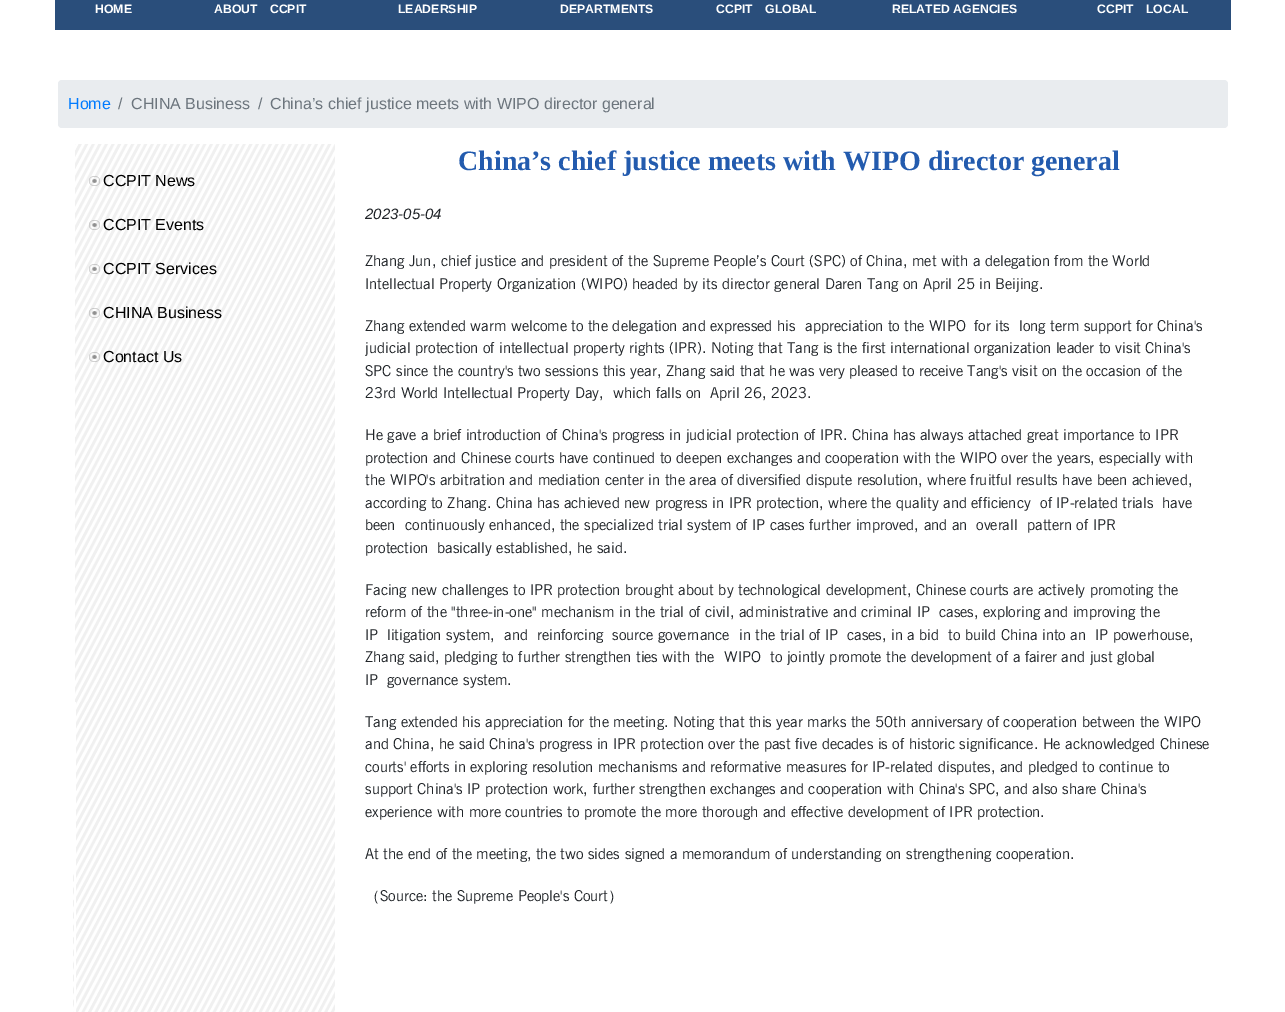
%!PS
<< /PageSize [1285 1012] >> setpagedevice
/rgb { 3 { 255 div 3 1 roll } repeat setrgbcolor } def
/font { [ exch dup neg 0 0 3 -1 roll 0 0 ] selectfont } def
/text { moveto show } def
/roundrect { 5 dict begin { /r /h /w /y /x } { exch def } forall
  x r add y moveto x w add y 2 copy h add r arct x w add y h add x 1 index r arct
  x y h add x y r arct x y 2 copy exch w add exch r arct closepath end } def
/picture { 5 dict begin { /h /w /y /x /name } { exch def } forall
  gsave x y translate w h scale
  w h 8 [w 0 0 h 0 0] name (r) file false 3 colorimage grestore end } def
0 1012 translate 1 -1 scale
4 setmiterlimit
255 255 255 rgb
0 0 1285 1012 rectfill
42 78 123 rgb
55 0 1176 30 rectfill
233 236 239 rgb
58 80 1170 48 4 roundrect fill
(img_01.rgb) 73 144 262 868 picture
(img_02.rgb) 89 176 11 10 picture
(img_03.rgb) 89 220 11 10 picture
(img_04.rgb) 89 264 11 10 picture
(img_05.rgb) 89 308 11 10 picture
(img_06.rgb) 89 352 11 10 picture
/LiberationSans-Bold 12.25 font
255 255 255 rgb
(HOME) 95 13 text
(ABOUT CCPIT) 214 13 text
(LEADERSHIP) 398 13 text
(DEPARTMENTS) 560 13 text
(CCPIT GLOBAL) 716 13 text
(RELATED AGENCIES) 892 13 text
(CCPIT LOCAL) 1097 13 text
/LiberationSans-Regular 16 font
0 123 255 rgb
(Home) 68 109 text
108 117 125 rgb
(/) 118 109 text
(CHINA Business) 131 109 text
(/) 258 109 text
(China’s chief justice meets with WIPO director general) 270 109 text
0 0 0 rgb
(CCPIT News) 103 186 text
(CCPIT Events) 103 230 text
(CCPIT Services) 103 274 text
(CHINA Business) 103 318 text
(Contact Us) 103 362 text
/LiberationSerif-Bold 28 font
35 91 174 rgb
(China’s chief justice meets with WIPO director general) 458 170 text
/LiberationSans-Italic 15 font
33 37 41 rgb
(2023-05-04) 365 219 text
/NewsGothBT-Regular 15 font
(Zhang Jun, chief justice and president of the Supreme People’s Court \(SPC\) of China, met with a delegation from the World) 365 266 text
(Intellectual Property Organization \(WIPO\) headed by its director general Daren Tang on April 25 in Beijing.) 365 289 text
(Zhang extended warm welcome to the delegation and expressed his) 365 331 text
(appreciation to the WIPO) 805 331 text
(for its) 974 331 text
(long term support for China's) 1019 331 text
(judicial protection of intellectual property rights \(IPR\). Noting that Tang is the first international organization leader to visit China's) 365 353 text
(SPC since the country's two sessions this year, Zhang said that he was very pleased to receive Tang's visit on the occasion of the) 365 376 text
(23rd World Intellectual Property Day,) 365 398 text
(which falls on) 613 398 text
(April 26, 2023.) 710 398 text
(He gave a brief introduction of China's progress in judicial protection of IPR. China has always attached great importance to IPR) 365 440 text
(protection and Chinese courts have continued to deepen exchanges and cooperation with the WIPO over the years, especially with) 365 463 text
(the WIPO's arbitration and mediation center in the area of diversified dispute resolution, where fruitful results have been achieved,) 365 485 text
(according to Zhang. China has achieved new progress in IPR protection, where the quality and efficiency) 365 508 text
(of IP-related trials) 1040 508 text
(have) 1162 508 text
(been) 365 530 text
(continuously enhanced, the specialized trial system of IP cases further improved, and an) 405 530 text
(overall) 976 530 text
(pattern of IPR) 1027 530 text
(protection) 365 553 text
(basically established, he said.) 437 553 text
(Facing new challenges to IPR protection brought about by technological development, Chinese courts are actively promoting the) 365 595 text
(reform of the "three-in-one" mechanism in the trial of civil, administrative and criminal IP) 365 617 text
(cases, exploring and improving the) 939 617 text
(IP) 365 640 text
(litigation system,) 387 640 text
(and) 504 640 text
(reinforcing) 537 640 text
(source governance) 612 640 text
(in the trial of IP) 739 640 text
(cases, in a bid) 847 640 text
(to build China into an) 948 640 text
(IP powerhouse,) 1095 640 text
(Zhang said, pledging to further strengthen ties with the) 365 662 text
(WIPO) 724 662 text
(to jointly promote the development of a fairer and just global) 770 662 text
(IP) 365 685 text
(governance system.) 387 685 text
(Tang extended his appreciation for the meeting. Noting that this year marks the 50th anniversary of cooperation between the WIPO) 365 727 text
(and China, he said China's progress in IPR protection over the past five decades is of historic significance. He acknowledged Chinese) 365 749 text
(courts' efforts in exploring resolution mechanisms and reformative measures for IP-related disputes, and pledged to continue to) 365 772 text
(support China's IP protection work, further strengthen exchanges and cooperation with China's SPC, and also share China's) 365 794 text
(experience with more countries to promote the more thorough and effective development of IPR protection.) 365 817 text
(At the end of the meeting, the two sides signed a memorandum of understanding on strengthening cooperation.) 365 859 text
/WenQuanYiZenHei-Medium 15 font
(（) 365 901 text
/NewsGothBT-Regular 15 font
(Source: the Supreme People's Court) 380 901 text
/WenQuanYiZenHei-Medium 15 font
(）) 608 901 text
showpage
